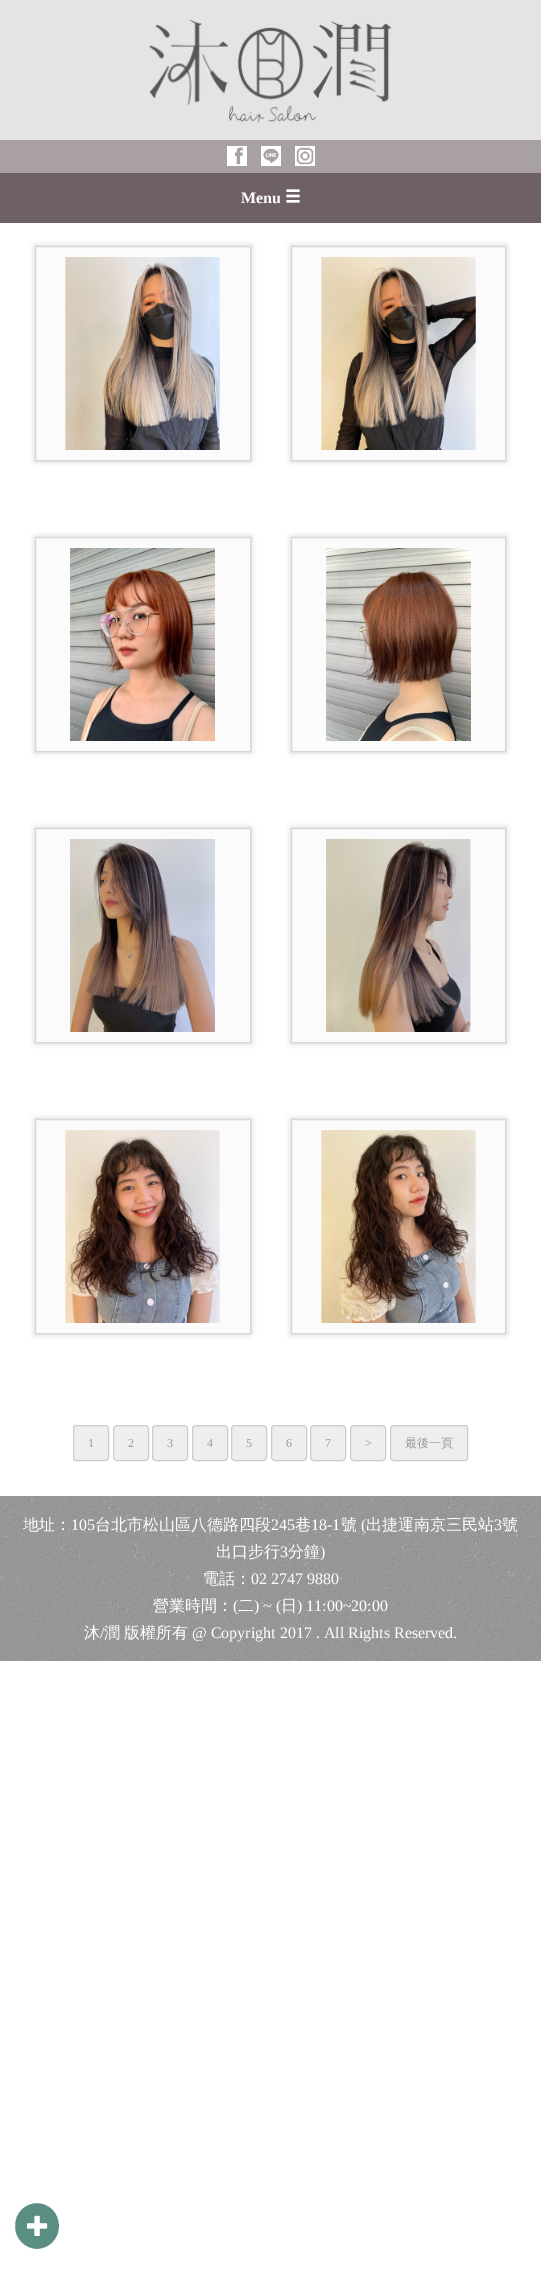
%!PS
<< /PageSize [541 2274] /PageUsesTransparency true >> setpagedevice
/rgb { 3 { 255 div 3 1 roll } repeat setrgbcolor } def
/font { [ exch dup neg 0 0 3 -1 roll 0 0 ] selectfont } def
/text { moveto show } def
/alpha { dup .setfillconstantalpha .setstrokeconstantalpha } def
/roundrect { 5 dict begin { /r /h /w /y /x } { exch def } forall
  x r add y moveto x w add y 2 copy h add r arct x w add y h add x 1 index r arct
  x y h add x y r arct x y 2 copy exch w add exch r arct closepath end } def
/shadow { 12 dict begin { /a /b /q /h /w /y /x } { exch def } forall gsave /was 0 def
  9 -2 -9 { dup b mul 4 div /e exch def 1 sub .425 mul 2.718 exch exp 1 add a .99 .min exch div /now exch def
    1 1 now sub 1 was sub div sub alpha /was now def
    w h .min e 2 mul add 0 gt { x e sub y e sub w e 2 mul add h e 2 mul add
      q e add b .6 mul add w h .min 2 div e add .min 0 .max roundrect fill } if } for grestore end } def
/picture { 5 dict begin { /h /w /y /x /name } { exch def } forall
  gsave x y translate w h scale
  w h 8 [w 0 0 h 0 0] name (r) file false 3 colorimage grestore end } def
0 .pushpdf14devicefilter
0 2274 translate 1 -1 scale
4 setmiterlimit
255 255 255 rgb
0 0 541 2274 rectfill
168 160 162 rgb
0 140 541 33 rectfill
229 227 227 rgb
0 0 541 140 rectfill
(img_01.rgb) 149 19 243 104 picture
(img_02.rgb) 227 146 20 20 picture
(img_03.rgb) 261 146 20 20 picture
(img_04.rgb) 295 146 20 20 picture
110 97 100 rgb
0 173 541 50 rectfill
(img_05.rgb) 286 189 14 14 picture
0 0 0 rgb
35 246 216 215 0 3 0.2 shadow
251 251 251 rgb
35.5 246.5 moveto 215 0 rlineto 0 214 rlineto -215 0 rlineto closepath gsave fill grestore
215 215 215 rgb
stroke
(img_06.rgb) 65 257 155 193 picture
0 0 0 rgb
291 246 215 215 0 3 0.2 shadow
251 251 251 rgb
291.5 246.5 moveto 214 0 rlineto 0 214 rlineto -214 0 rlineto closepath gsave fill grestore
215 215 215 rgb
stroke
(img_07.rgb) 321 257 155 193 picture
0 0 0 rgb
35 537 216 215 0 3 0.2 shadow
251 251 251 rgb
35.5 537.5 moveto 215 0 rlineto 0 214 rlineto -215 0 rlineto closepath gsave fill grestore
215 215 215 rgb
stroke
(img_08.rgb) 70 548 145 193 picture
0 0 0 rgb
291 537 215 215 0 3 0.2 shadow
251 251 251 rgb
291.5 537.5 moveto 214 0 rlineto 0 214 rlineto -214 0 rlineto closepath gsave fill grestore
215 215 215 rgb
stroke
(img_09.rgb) 326 548 145 193 picture
0 0 0 rgb
35 828 216 215 0 3 0.2 shadow
251 251 251 rgb
35.5 828.5 moveto 215 0 rlineto 0 214 rlineto -215 0 rlineto closepath gsave fill grestore
215 215 215 rgb
stroke
(img_10.rgb) 70 839 145 193 picture
0 0 0 rgb
291 828 215 215 0 3 0.2 shadow
251 251 251 rgb
291.5 828.5 moveto 214 0 rlineto 0 214 rlineto -214 0 rlineto closepath gsave fill grestore
215 215 215 rgb
stroke
(img_11.rgb) 326 839 145 193 picture
0 0 0 rgb
35 1119 216 215 0 3 0.2 shadow
251 251 251 rgb
35.5 1119.5 moveto 215 0 rlineto 0 214 rlineto -215 0 rlineto closepath gsave fill grestore
215 215 215 rgb
stroke
(img_12.rgb) 65 1130 155 193 picture
0 0 0 rgb
291 1119 215 215 0 3 0.2 shadow
251 251 251 rgb
291.5 1119.5 moveto 214 0 rlineto 0 214 rlineto -214 0 rlineto closepath gsave fill grestore
215 215 215 rgb
stroke
(img_13.rgb) 321 1130 155 193 picture
238 238 238 rgb
76 1425.5 moveto 29 0 rlineto 2 0 3.5 1.5 3.5 3.5 rcurveto 0 28 rlineto 0 2 -1.5 3.5 -3.5 3.5 rcurveto -29 0 rlineto -1.5 0 -2.5 -1 -2.5 -2.5 rcurveto 0 -30 rlineto 0 -1.5 1 -2.5 2.5 -2.5 rcurveto closepath gsave fill grestore
204 204 204 rgb
stroke
238 238 238 rgb
113.5 1425.5 35 35 3.5 roundrect gsave fill grestore
204 204 204 rgb
stroke
238 238 238 rgb
152.5 1425.5 35 35 3.5 roundrect gsave fill grestore
204 204 204 rgb
stroke
238 238 238 rgb
192.5 1425.5 35 35 3.5 roundrect gsave fill grestore
204 204 204 rgb
stroke
238 238 238 rgb
231.5 1425.5 35 35 3.5 roundrect gsave fill grestore
204 204 204 rgb
stroke
238 238 238 rgb
271.5 1425.5 35 35 3.5 roundrect gsave fill grestore
204 204 204 rgb
stroke
238 238 238 rgb
310.5 1425.5 35 35 3.5 roundrect gsave fill grestore
204 204 204 rgb
stroke
238 238 238 rgb
350.5 1425.5 35 35 3.5 roundrect gsave fill grestore
204 204 204 rgb
stroke
238 238 238 rgb
394 1425.5 moveto 71 0 rlineto 1.5 0 2.5 1 2.5 2.5 rcurveto 0 30 rlineto 0 1.5 -1 2.5 -2.5 2.5 rcurveto -71 0 rlineto -2 0 -3.5 -1.5 -3.5 -3.5 rcurveto 0 -28 rlineto 0 -2 1.5 -3.5 3.5 -3.5 rcurveto closepath gsave fill grestore
204 204 204 rgb
stroke
(img_14.rgb) 0 1496 541 165 picture
91 142 131 rgb
12.5 2200.5 49 51 24.5 roundrect gsave fill grestore
255 255 255 rgb
5 setlinewidth
stroke
(img_15.rgb) 27 2215 21 21 picture
/LiberationSerif-Bold 16 font
(Menu) 241 203 text
/LiberationSerif-Regular 12 font
153 153 153 rgb
(1) 88 1447 text
(2) 128 1447 text
(3) 167 1447 text
(4) 207 1447 text
(5) 246 1447 text
(6) 286 1447 text
(7) 325 1447 text
(>) 365 1447 text
/WenQuanYiZenHei-Medium 12 font
(最後一頁) 405 1447 text
/WenQuanYiZenHei-Medium 16 font
255 255 255 rgb
(地址：) 23 1530 text
/LiberationSerif-Regular 16 font
(105) 71 1530 text
/WenQuanYiZenHei-Medium 16 font
(台北市松山區八德路四段) 95 1530 text
/LiberationSerif-Regular 16 font
(245) 271 1530 text
/WenQuanYiZenHei-Medium 16 font
(巷) 295 1530 text
/LiberationSerif-Regular 16 font
(18-1) 311 1530 text
/WenQuanYiZenHei-Medium 16 font
(號) 341 1530 text
/LiberationSerif-Regular 16 font
(\() 361 1530 text
/WenQuanYiZenHei-Medium 16 font
(出捷運南京三民站) 366 1530 text
/LiberationSerif-Regular 16 font
(3) 494 1530 text
/WenQuanYiZenHei-Medium 16 font
(號) 502 1530 text
(出口步行) 216 1557 text
/LiberationSerif-Regular 16 font
(3) 280 1557 text
/WenQuanYiZenHei-Medium 16 font
(分鐘) 288 1557 text
/LiberationSerif-Regular 16 font
(\)) 320 1557 text
/WenQuanYiZenHei-Medium 16 font
(電話：) 203 1584 text
/LiberationSerif-Regular 16 font
(02 2747 9880) 251 1584 text
/WenQuanYiZenHei-Medium 16 font
(營業時間：) 153 1611 text
/LiberationSerif-Regular 16 font
(\() 233 1611 text
/WenQuanYiZenHei-Medium 16 font
(二) 238 1611 text
/LiberationSerif-Regular 16 font
(\) ~ \() 254 1611 text
/WenQuanYiZenHei-Medium 16 font
(日) 281 1611 text
/LiberationSerif-Regular 16 font
(\) 11:00~20:00) 297 1611 text
/WenQuanYiZenHei-Medium 16 font
(沐) 84 1638 text
/LiberationSerif-Regular 16 font
(/) 100 1638 text
/WenQuanYiZenHei-Medium 16 font
(潤) 104 1638 text
(版權所有) 124 1638 text
/LiberationSerif-Regular 16 font
(@ Copyright 2017 . All Rights Reserved.) 192 1638 text
.poppdf14devicefilter showpage
